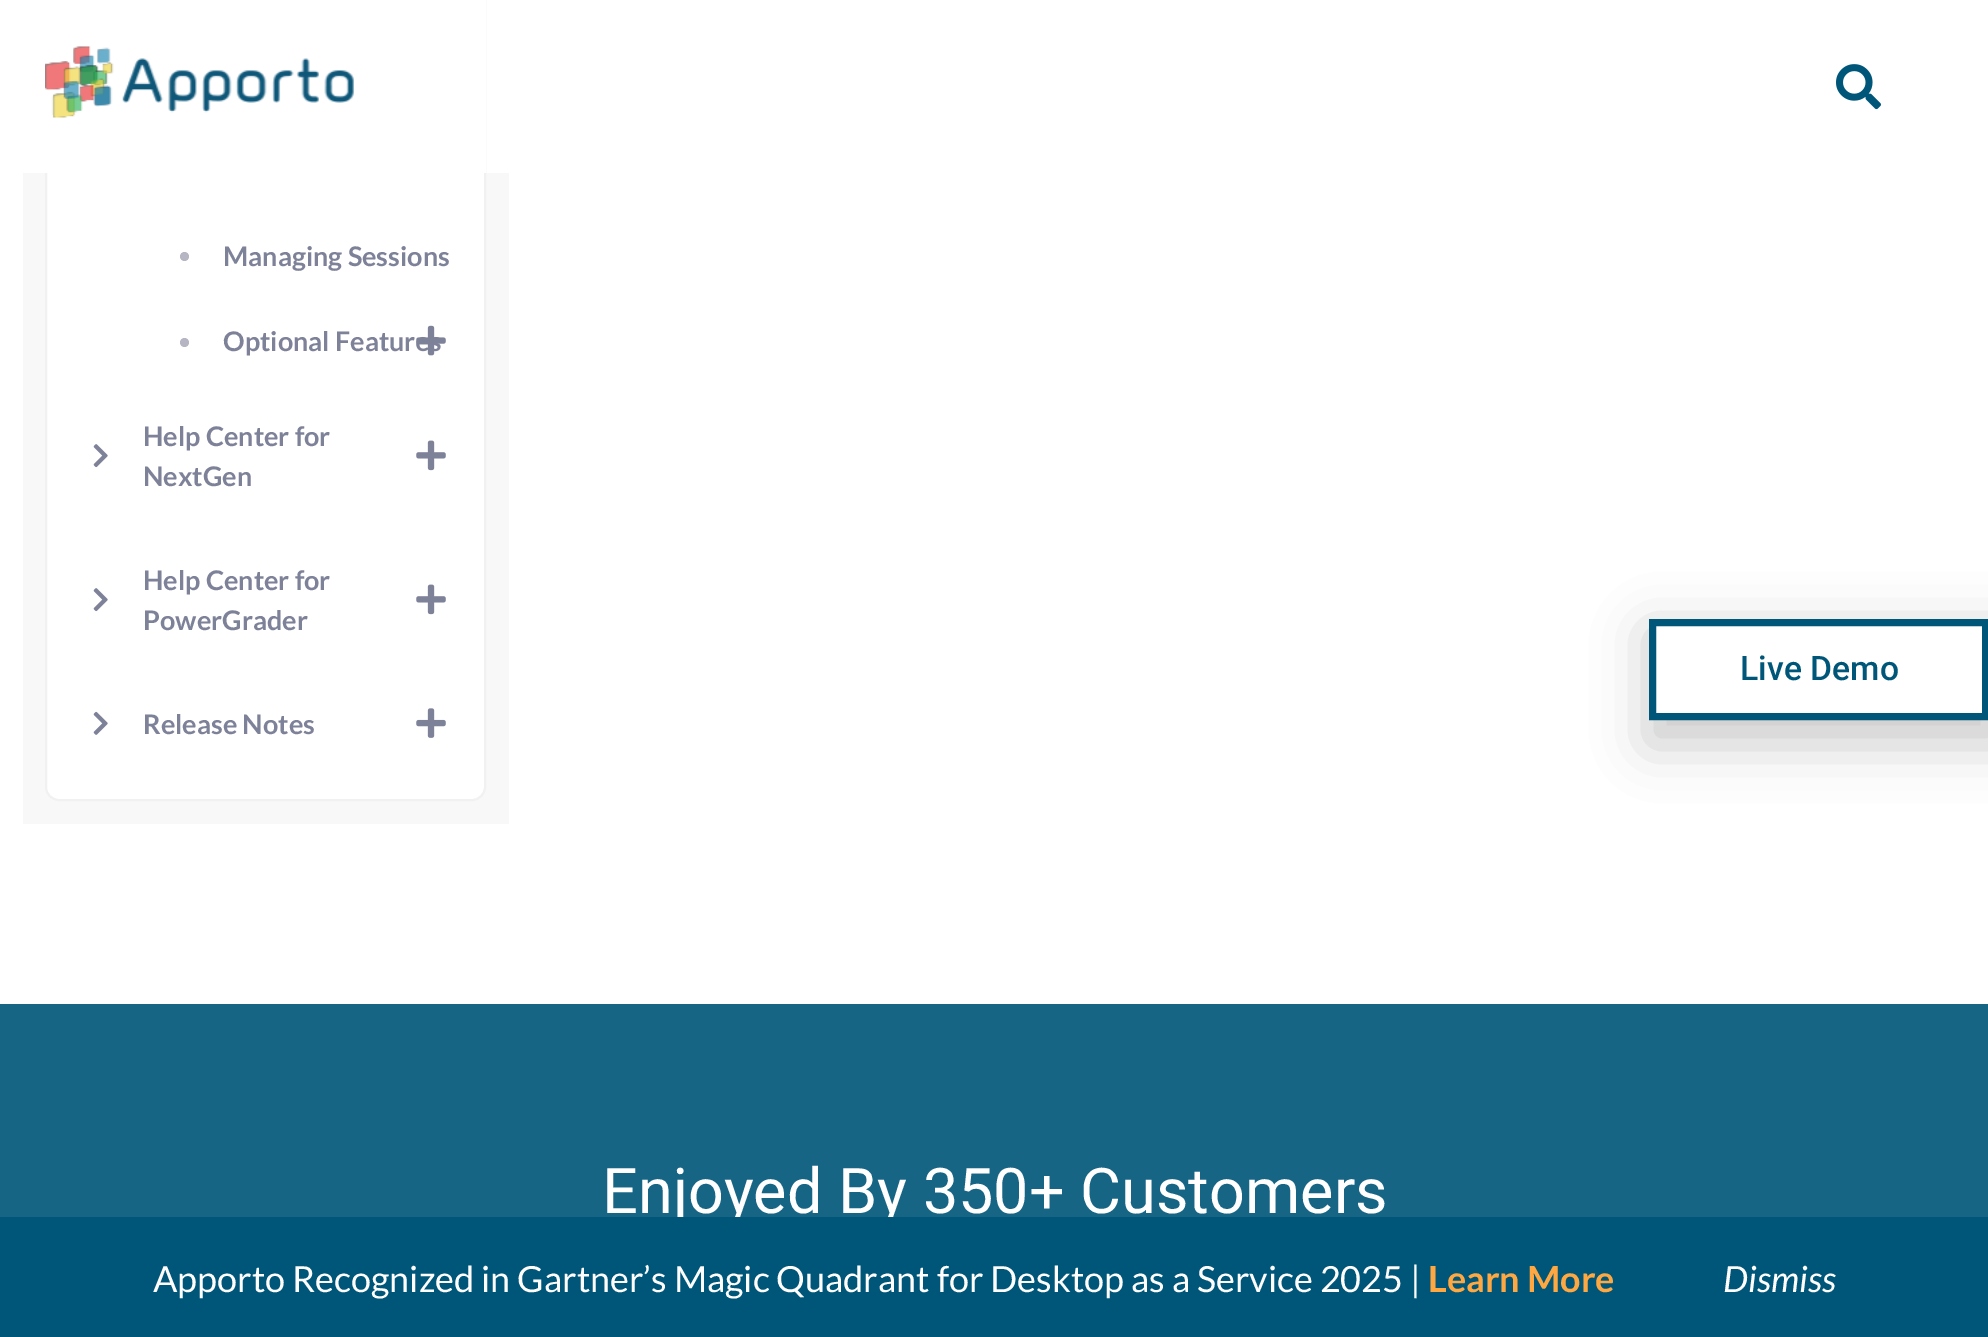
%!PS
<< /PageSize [1988 1337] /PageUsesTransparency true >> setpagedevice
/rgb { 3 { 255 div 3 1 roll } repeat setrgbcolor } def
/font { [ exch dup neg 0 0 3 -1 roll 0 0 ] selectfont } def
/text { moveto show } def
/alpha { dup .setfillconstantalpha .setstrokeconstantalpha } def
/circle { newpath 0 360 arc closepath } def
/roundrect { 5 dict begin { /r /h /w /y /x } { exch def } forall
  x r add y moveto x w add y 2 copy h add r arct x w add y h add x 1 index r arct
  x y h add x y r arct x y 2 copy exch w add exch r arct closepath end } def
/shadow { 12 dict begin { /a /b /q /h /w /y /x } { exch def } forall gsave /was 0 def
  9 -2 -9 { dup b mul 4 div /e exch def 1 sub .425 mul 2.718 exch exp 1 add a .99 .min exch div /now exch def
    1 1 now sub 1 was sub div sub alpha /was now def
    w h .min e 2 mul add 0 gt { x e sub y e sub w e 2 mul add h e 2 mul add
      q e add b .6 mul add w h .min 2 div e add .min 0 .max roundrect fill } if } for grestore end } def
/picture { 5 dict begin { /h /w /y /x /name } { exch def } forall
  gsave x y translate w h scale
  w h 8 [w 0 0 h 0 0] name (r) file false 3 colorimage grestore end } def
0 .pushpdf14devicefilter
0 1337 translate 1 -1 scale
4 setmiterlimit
255 255 255 rgb
0 0 1988 1337 rectfill
248 248 248 rgb
23 173 486 651 rectfill
255 255 255 rgb
46 -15 439 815 13 roundrect gsave fill grestore
241 241 241 rgb
2 setlinewidth
stroke
255 255 255 rgb
45 0 441 173 rectfill
(img_01.rgb) 45 46 309 72 picture
(img_02.rgb) 1836 64 45 46 picture
181 181 195 rgb
184.5 256.5 4.5 circle fill
184.5 342.5 4.5 circle fill
(img_04.rgb) 93 444 15 24 picture
(img_05.rgb) 416 440 30 31 picture
(img_04.rgb) 93 588 15 24 picture
(img_05.rgb) 416 584 30 31 picture
(img_06.rgb) 93 711 15 24 picture
(img_07.rgb) 416 708 30 30 picture
23 101 133 rgb
0 1004 1988 213 rectfill
0 0 0 rgb
1647 630 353 115 0 26 0.2 shadow
255 255 255 rgb
1652.5 622.5 moveto 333 0 rlineto 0 94 rlineto -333 0 rlineto closepath gsave fill grestore
0 86 121 rgb
7 setlinewidth
stroke
/Lato-Bold 27 font
126 130 153 rgb
(Managing Sessions) 223 266 text
(Optional Feature) 223 351 text
(img_03.rgb) 416 325 30 31 picture
(Help Center for) 143 446 text
(NextGen) 143 486 text
(Help Center for) 143 590 text
(PowerGrader) 143 630 text
(Release Notes) 143 734 text
/Roboto-Regular 63 font
255 255 255 rgb
(Enjoyed By 350+ Customers) 602 1213 text
0 86 121 rgb
0 1217 1988 120 rectfill
/Lato-Regular 36 font
255 255 255 rgb
(Apporto Recognized in Gartner’s Magic Quadrant for Desktop as a Service 2025 |) 153 1292 text
/Lato-Bold 36 font
255 168 66 rgb
(Learn More) 1428 1292 text
/Lato-Italic 36 font
255 255 255 rgb
(Dismiss) 1723 1292 text
/Roboto-Medium 33.75 font
0 86 121 rgb
(Live Demo) 1740 680 text
.poppdf14devicefilter showpage
